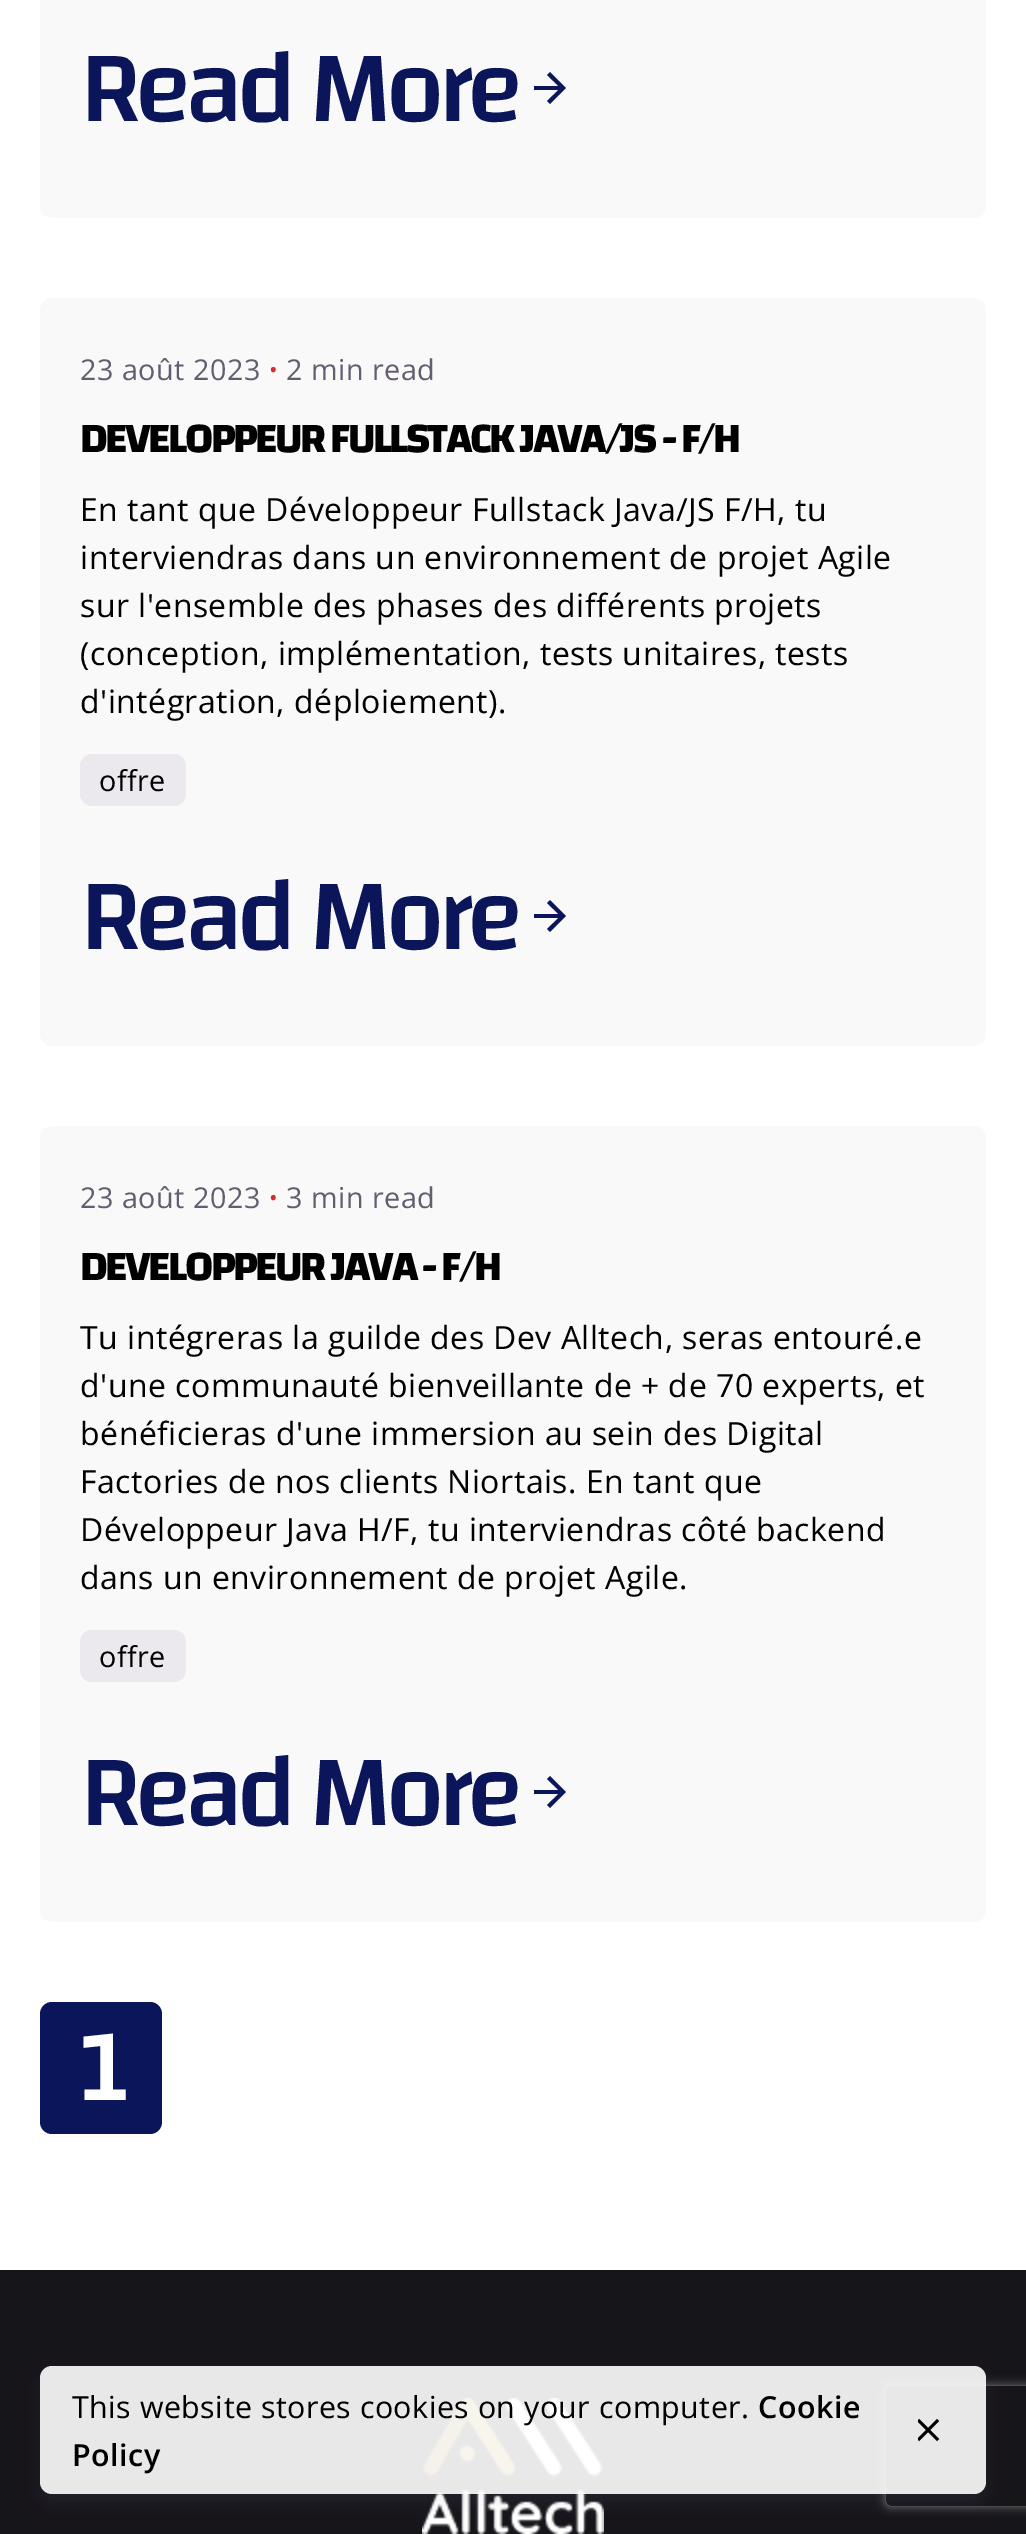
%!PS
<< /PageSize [1026 2534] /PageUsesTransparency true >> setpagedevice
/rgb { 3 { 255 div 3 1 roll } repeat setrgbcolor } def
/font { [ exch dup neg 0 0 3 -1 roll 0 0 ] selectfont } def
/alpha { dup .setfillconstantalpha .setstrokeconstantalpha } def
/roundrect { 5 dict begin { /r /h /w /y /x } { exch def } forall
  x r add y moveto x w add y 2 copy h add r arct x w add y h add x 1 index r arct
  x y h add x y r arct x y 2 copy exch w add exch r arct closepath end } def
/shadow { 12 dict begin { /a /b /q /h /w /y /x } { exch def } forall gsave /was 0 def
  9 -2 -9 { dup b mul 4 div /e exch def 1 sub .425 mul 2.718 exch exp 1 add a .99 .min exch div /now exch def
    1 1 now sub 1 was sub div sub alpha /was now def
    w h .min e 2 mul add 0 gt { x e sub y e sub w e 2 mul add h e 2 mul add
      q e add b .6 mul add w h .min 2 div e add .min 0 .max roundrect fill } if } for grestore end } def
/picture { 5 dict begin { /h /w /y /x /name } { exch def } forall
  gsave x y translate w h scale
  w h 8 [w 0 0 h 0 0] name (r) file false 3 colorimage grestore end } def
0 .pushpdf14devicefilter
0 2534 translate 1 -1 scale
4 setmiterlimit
255 255 255 rgb
0 0 1026 2534 rectfill
249 249 250 rgb
40 -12 946 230 12 roundrect fill
10 22 89 rgb
550 72 moveto -3 3 rlineto 11.5 11 rlineto -24.5 0 rlineto 0 4 rlineto 24.5 0 rlineto -11.5 11 rlineto 3 3 rlineto 16 -16 rlineto closepath fill
250 249 250 rgb
40 298 946 748 12 roundrect fill
235 233 237 rgb
80 754 106 52 12 roundrect fill
10 22 89 rgb
550 900 moveto -3 3 rlineto 11.5 11 rlineto -24.5 0 rlineto 0 4 rlineto 24.5 0 rlineto -11.5 11 rlineto 3 3 rlineto 16 -16 rlineto closepath fill
250 249 250 rgb
40 1126 946 796 12 roundrect fill
235 233 237 rgb
80 1630 106 52 12 roundrect fill
10 22 89 rgb
550 1776 moveto -3 3 rlineto 11.5 11 rlineto -24.5 0 rlineto 0 4 rlineto 24.5 0 rlineto -11.5 11 rlineto 3 3 rlineto 16 -16 rlineto closepath fill
40 2002 122 132 12 roundrect fill
22 21 25 rgb
0 2270 1026 264 rectfill
(img_01.rgb) 422 2398 182 136 picture
gsave
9 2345 moveto 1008 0 rlineto 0 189 rlineto -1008 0 rlineto closepath 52 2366 moveto 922 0 rlineto 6.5 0 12 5.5 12 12 rcurveto 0 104 rlineto 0 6.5 -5.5 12 -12 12 rcurveto -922 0 rlineto -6.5 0 -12 -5.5 -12 -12 rcurveto 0 -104 rlineto 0 -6.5 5.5 -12 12 -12 rcurveto closepath eoclip newpath
150 144 162 rgb
40 2376 946 128 12 10 0.1 shadow
grestore
gsave
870 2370 moveto 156 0 rlineto 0 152 rlineto -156 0 rlineto closepath 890 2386 moveto 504 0 rlineto 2 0 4 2 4 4 rcurveto 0 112 rlineto 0 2 -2 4 -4 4 rcurveto -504 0 rlineto -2 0 -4 -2 -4 -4 rcurveto 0 -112 rlineto 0 -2 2 -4 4 -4 rcurveto closepath eoclip newpath
128 128 128 rgb
886 2386 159 120 4 5 1 shadow
grestore
0.9 alpha
255 255 255 rgb
40 2366 946 128 12 roundrect fill
1 alpha
(img_02.rgb) 918 2418 22 24 picture
/Changa-Medium 104 font
10 22 89 rgb
80 121 moveto -6.25 0 (Read More) ashow
/OpenSans-Regular 28.75 font
99 93 111 rgb
80 380 moveto 0.48 0 (23 août 2023) ashow
/OpenSans-Regular 23 font
220 40 40 rgb
269 378 moveto 0.48 0 (•) ashow
/OpenSans-Regular 28.75 font
99 93 111 rgb
286 380 moveto 0.48 0 (2 min read) ashow
/Changa-Bold 43.25 font
0 0 0 rgb
80 452 moveto -2.6 0 (DEVELOPPEUR FULLSTACK JAVA/JS - F/H) ashow
/OpenSans-Regular 32 font
80 521 moveto 0.48 0 (En tant que Développeur Fullstack Java/JS F/H, tu) ashow
80 569 moveto 0.48 0 (interviendras dans un environnement de projet Agile) ashow
80 617 moveto 0.48 0 (sur l'ensemble des phases des différents projets) ashow
80 665 moveto 0.48 0 (\(conception, implémentation, tests unitaires, tests) ashow
80 713 moveto 0.48 0 (d'intégration, déploiement\).) ashow
/OpenSans-Regular 28.75 font
99 791 moveto 0.48 0 (offre) ashow
/Changa-Medium 104 font
10 22 89 rgb
80 949 moveto -6.25 0 (Read More) ashow
/OpenSans-Regular 28.75 font
99 93 111 rgb
80 1208 moveto 0.48 0 (23 août 2023) ashow
/OpenSans-Regular 23 font
220 40 40 rgb
269 1206 moveto 0.48 0 (•) ashow
/OpenSans-Regular 28.75 font
99 93 111 rgb
286 1208 moveto 0.48 0 (3 min read) ashow
/Changa-Bold 43.25 font
0 0 0 rgb
80 1280 moveto -2.6 0 (DEVELOPPEUR JAVA - F/H) ashow
/OpenSans-Regular 32 font
80 1349 moveto 0.48 0 (Tu intégreras la guilde des Dev Alltech, seras entouré.e) ashow
80 1397 moveto 0.48 0 (d'une communauté bienveillante de + de 70 experts, et) ashow
80 1445 moveto 0.48 0 (bénéficieras d'une immersion au sein des Digital) ashow
80 1493 moveto 0.48 0 (Factories de nos clients Niortais. En tant que) ashow
80 1541 moveto 0.48 0 (Développeur Java H/F, tu interviendras côté backend) ashow
80 1589 moveto 0.48 0 (dans un environnement de projet Agile.) ashow
/OpenSans-Regular 28.75 font
99 1667 moveto 0.48 0 (offre) ashow
/Changa-Medium 104 font
10 22 89 rgb
80 1825 moveto -6.25 0 (Read More) ashow
255 255 255 rgb
81 2100 moveto -6.25 0 (1) ashow
/OpenSans-Regular 30.4 font
0 0 0 rgb
72 2418 moveto 0.48 0 (This website stores cookies on your computer.) ashow
/OpenSans-SemiBold 30.4 font
758 2418 moveto 0.48 0 (Cookie) ashow
72 2466 moveto 0.48 0 (Policy) ashow
.poppdf14devicefilter showpage
